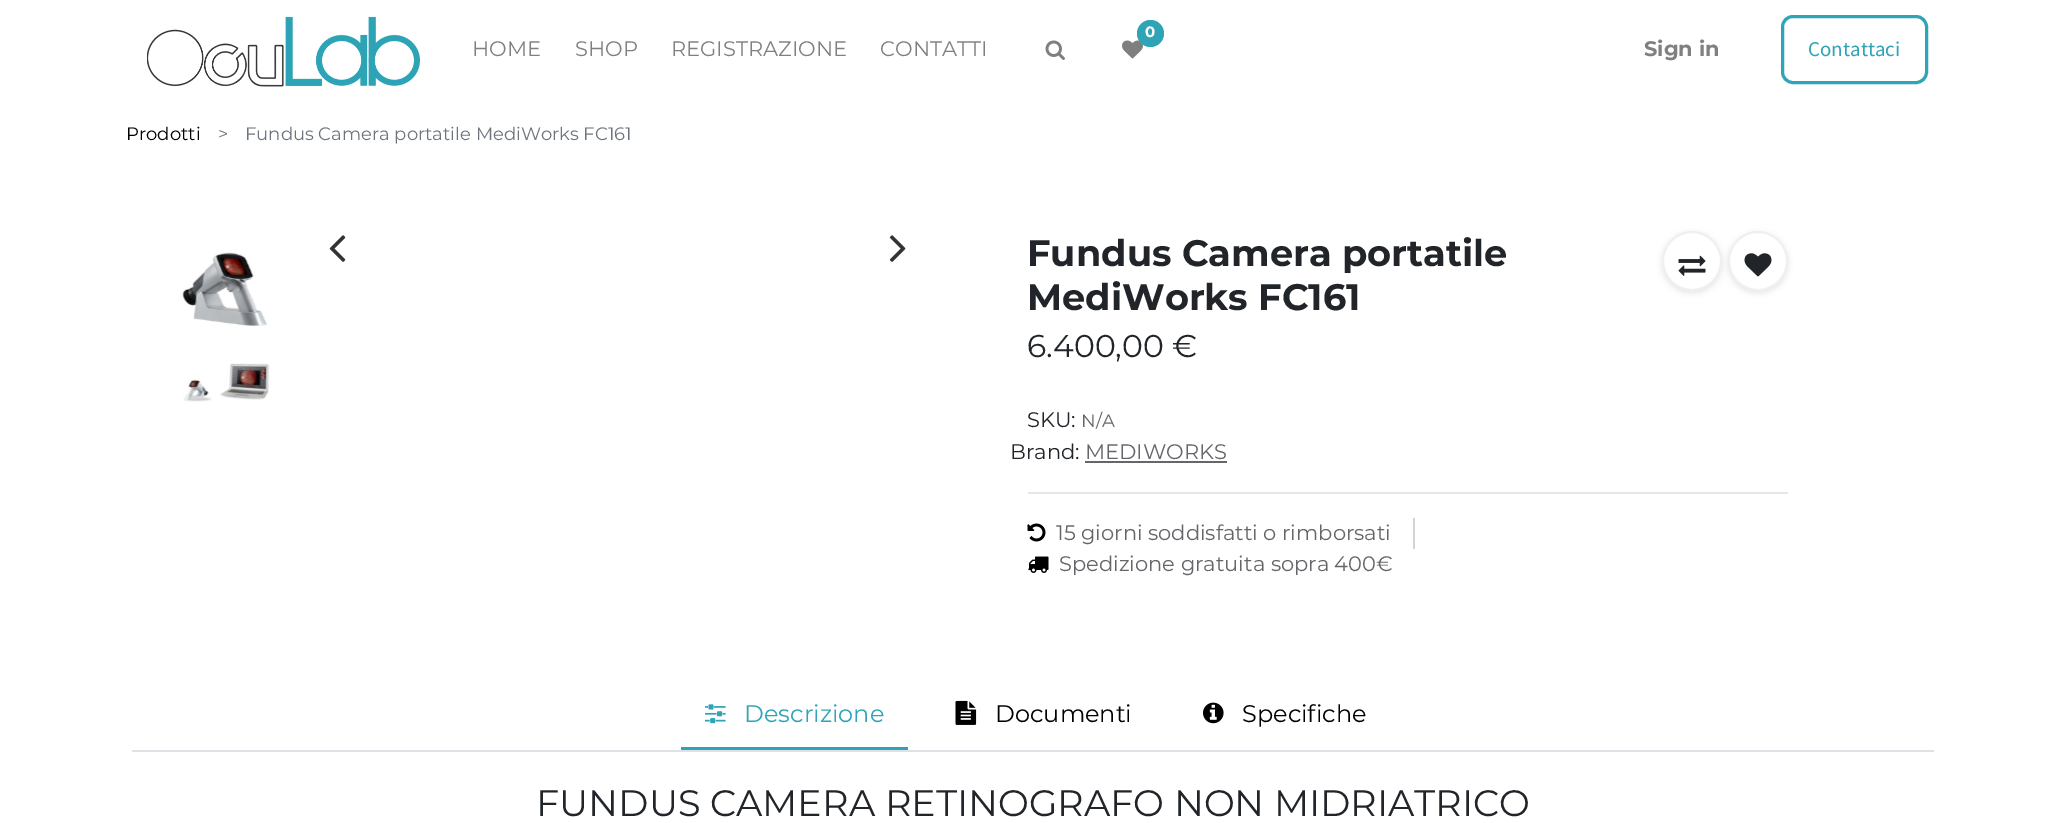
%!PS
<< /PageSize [2065 823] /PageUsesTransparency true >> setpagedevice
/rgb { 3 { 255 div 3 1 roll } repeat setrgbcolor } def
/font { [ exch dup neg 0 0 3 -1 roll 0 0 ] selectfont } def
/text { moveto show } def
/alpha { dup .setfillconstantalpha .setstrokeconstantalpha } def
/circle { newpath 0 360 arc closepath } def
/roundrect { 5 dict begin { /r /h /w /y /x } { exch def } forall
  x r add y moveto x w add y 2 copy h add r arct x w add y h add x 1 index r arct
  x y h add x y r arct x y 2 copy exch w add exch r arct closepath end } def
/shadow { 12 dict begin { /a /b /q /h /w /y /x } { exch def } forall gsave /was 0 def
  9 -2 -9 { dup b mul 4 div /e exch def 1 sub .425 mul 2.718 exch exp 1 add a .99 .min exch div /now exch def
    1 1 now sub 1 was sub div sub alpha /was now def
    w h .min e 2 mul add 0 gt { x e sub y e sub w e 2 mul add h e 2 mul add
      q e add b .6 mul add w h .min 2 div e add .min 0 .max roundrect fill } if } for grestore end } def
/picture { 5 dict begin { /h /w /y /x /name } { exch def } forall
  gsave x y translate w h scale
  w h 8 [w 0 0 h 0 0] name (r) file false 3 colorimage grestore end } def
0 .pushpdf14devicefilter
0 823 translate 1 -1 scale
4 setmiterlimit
255 255 255 rgb
0 0 2065 823 rectfill
(img_01.rgb) 147 16 273 71 picture
(img_02.rgb) 1122 40 21 19 picture
47 164 183 rgb
1150.5 33.5 13.5 circle fill
(img_03.rgb) 1045 40 20 20 picture
3 setlinewidth
1782.5 16.5 144 66 10.5 roundrect stroke
(img_04.rgb) 329 235 17 27 picture
(img_05.rgb) 889 235 17 27 picture
(img_06.rgb) 182 252 86 74 picture
(img_07.rgb) 183 363 87 39 picture
0 0 0 rgb
1662 233 60 60 30 3 0.1 shadow
255 255 255 rgb
1692 261 29 circle gsave fill grestore
240 240 240 rgb
2 setlinewidth
stroke
(img_08.rgb) 1678 255 28 21 picture
0 0 0 rgb
1728 233 60 60 30 3 0.1 shadow
255 255 255 rgb
1758 261 29 circle gsave fill grestore
240 240 240 rgb
stroke
(img_09.rgb) 1744 253 28 24 picture
100 102 105 rgb
1085 461 142 2 rectfill
230 230 230 rgb
1028 492 760 2 rectfill
211 211 211 rgb
1413 518 2 31 rectfill
(img_10.rgb) 1027 523 19 19 picture
(img_11.rgb) 1028 556 21 17 picture
222 226 230 rgb
132 750 1802 2 rectfill
47 164 183 rgb
681 747 227 3 rectfill
(img_12.rgb) 705 704 21 20 picture
(img_13.rgb) 955 700 22 25 picture
(img_14.rgb) 1203 702 21 22 picture
/Montserrat-Bold 15 font
255 255 255 rgb
(0) 1145 37 text
/Montserrat-Regular 21 font
128 128 128 rgb
(HOME) 472 56 text
(SHOP) 575 56 text
(REGISTRAZIONE) 671 56 text
(CONTATTI) 880 56 text
/Montserrat-Bold 21 font
(Sign in) 1644 56 text
/SourceSansPro-Regular 21 font
47 164 183 rgb
(Contattaci) 1808 56 text
/Montserrat-Regular 18 font
0 0 0 rgb
(Prodotti) 126 140 text
108 117 125 rgb
(>) 218 140 text
(Fundus Camera portatile MediWorks FC161) 245 140 text
/Montserrat-Bold 36.75 font
33 37 41 rgb
(Fundus Camera portatile) 1027 266 text
(MediWorks FC161) 1027 310 text
/Montserrat-Regular 31.5 font
(6.400,00 €) 1027 357 text
/Montserrat-Regular 21 font
(SKU:) 1027 427 text
/Montserrat-Regular 18 font
100 102 105 rgb
(N/A) 1081 427 text
/Montserrat-Regular 21 font
33 37 41 rgb
(Brand:) 1010 459 text
100 102 105 rgb
(MEDIWORKS) 1085 459 text
(15 giorni soddisfatti o rimborsati) 1056 540 text
(Spedizione gratuita sopra 400€) 1059 571 text
/Montserrat-Regular 24 font
47 164 183 rgb
(Descrizione) 744 722 text
0 0 0 rgb
(Documenti) 995 722 text
(Specifiche) 1242 722 text
/Montserrat-Regular 36.75 font
33 37 41 rgb
(FUNDUS CAMERA RETINOGRAFO NON MIDRIATRICO) 536 816 text
.poppdf14devicefilter showpage
